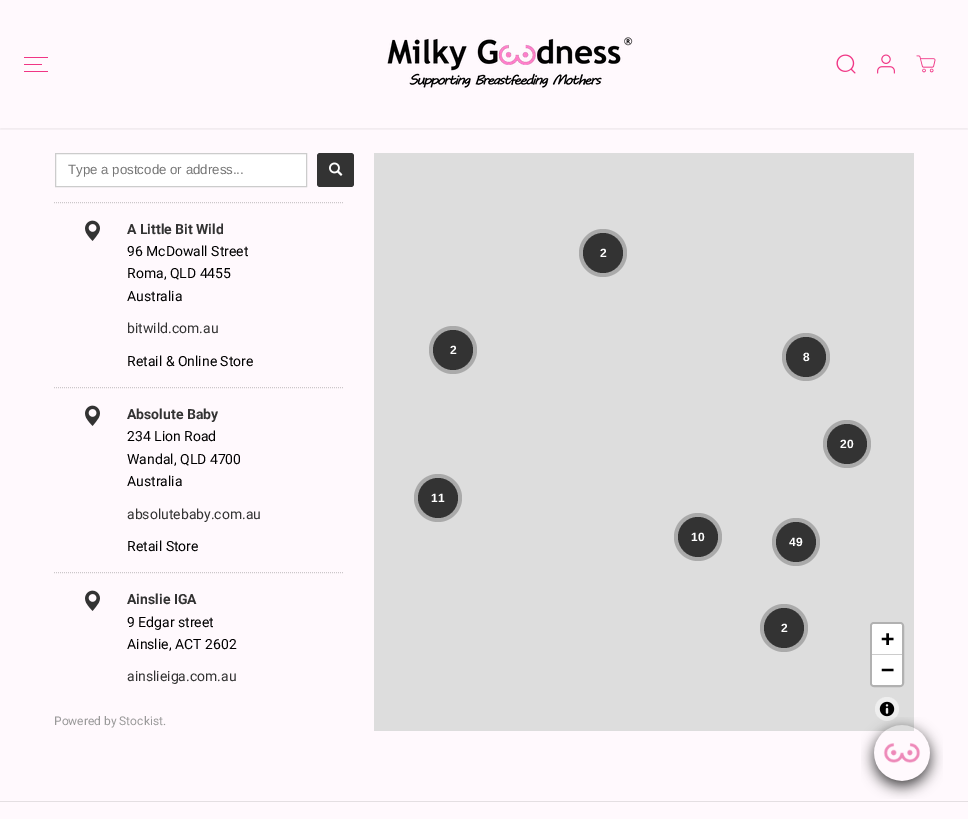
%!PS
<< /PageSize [968 819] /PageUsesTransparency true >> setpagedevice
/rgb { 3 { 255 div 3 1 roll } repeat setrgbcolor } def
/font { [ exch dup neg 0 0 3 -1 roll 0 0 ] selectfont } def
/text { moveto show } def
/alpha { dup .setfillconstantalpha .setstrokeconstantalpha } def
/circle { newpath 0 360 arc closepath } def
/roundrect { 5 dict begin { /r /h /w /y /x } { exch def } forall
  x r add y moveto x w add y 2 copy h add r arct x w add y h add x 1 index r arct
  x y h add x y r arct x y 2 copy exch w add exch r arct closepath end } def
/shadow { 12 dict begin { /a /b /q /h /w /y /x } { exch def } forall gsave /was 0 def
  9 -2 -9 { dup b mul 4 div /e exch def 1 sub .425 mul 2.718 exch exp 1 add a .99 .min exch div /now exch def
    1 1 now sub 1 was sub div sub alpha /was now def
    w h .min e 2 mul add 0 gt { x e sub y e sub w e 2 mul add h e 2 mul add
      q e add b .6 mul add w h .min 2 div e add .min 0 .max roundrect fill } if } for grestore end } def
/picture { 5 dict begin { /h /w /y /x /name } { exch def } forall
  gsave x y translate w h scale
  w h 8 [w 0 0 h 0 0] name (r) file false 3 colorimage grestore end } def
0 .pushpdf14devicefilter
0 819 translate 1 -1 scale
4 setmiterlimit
255 249 253 rgb
0 0 968 819 rectfill
gsave
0 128 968 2 rectclip
0 0 0 rgb
0 2 968 128 0 1 0.05 shadow
grestore
240 54 133 rgb
24 64 18 1 rectfill
24 57 24 1 rectfill
24 71 24 1 rectfill
(img_01.rgb) 387 37 246 51 picture
(img_02.rgb) 836 54 20 20 picture
(img_03.rgb) 877 54 18 20 picture
(img_04.rgb) 916 55 20 18 picture
255 255 255 rgb
55.5 153.5 moveto 251 0 rlineto 0 33 rlineto -251 0 rlineto closepath gsave fill grestore
204 204 204 rgb
stroke
51 51 51 rgb
317 153 37 34 3 roundrect fill
(img_05.rgb) 329 162 14 14 picture
204 199 202 rgb
[1 1] 0 setdash
54 202.5 moveto 290 0 rlineto stroke
(img_06.rgb) 85 220 15 21 picture
54 387.5 moveto 290 0 rlineto stroke
(img_06.rgb) 85 405 15 21 picture
54 572.5 moveto 290 0 rlineto stroke
(img_06.rgb) 85 590 15 21 picture
221 221 221 rgb
374 153 540 578 rectfill
170 170 170 rgb
603 253 24 circle fill
51 51 51 rgb
603 253 20 circle fill
170 170 170 rgb
453 350 24 circle fill
51 51 51 rgb
453 350 20 circle fill
170 170 170 rgb
806 357 24 circle fill
51 51 51 rgb
806 357 20 circle fill
170 170 170 rgb
847 444 24 circle fill
51 51 51 rgb
847 444 20 circle fill
170 170 170 rgb
438 498 24 circle fill
51 51 51 rgb
438 498 20 circle fill
170 170 170 rgb
698 537 24 circle fill
51 51 51 rgb
698 537 20 circle fill
170 170 170 rgb
796 542 24 circle fill
51 51 51 rgb
796 542 20 circle fill
170 170 170 rgb
784 628 24 circle fill
51 51 51 rgb
784 628 20 circle fill
177 177 177 rgb
2 setlinewidth
[] 0 setdash
871 623 32 63 3 roundrect stroke
255 255 255 rgb
874 624 moveto 26 0 rlineto 1 0 2 1 2 2 rcurveto 0 29 rlineto -30 0 rlineto 0 -29 rlineto 0 -1 1 -2 2 -2 rcurveto closepath fill
204 204 204 rgb
872 654 30 1 rectfill
255 255 255 rgb
872 655 moveto 30 0 rlineto 0 28 rlineto 0 1 -1 2 -2 2 rcurveto -26 0 rlineto -1 0 -2 -1 -2 -2 rcurveto closepath fill
238 238 238 rgb
887 709 12 circle fill
(img_07.rgb) 879 701 16 16 picture
228 223 226 rgb
0 801 968 1 rectfill
(img_08.rgb) 861 717 82 82 picture
/LiberationSans-Regular 13.3 font
117 117 117 rgb
(Type a postcode or address...) 68 174 text
/Roboto-Bold 14 font
51 51 51 rgb
(A Little Bit Wild) 127 234 text
/Roboto-Regular 14 font
0 0 0 rgb
(96 McDowall Street) 127 256 text
(Roma, QLD 4455) 127 278 text
(Australia) 127 301 text
51 51 51 rgb
(bitwild.com.au) 127 333 text
0 0 0 rgb
(Retail & Online Store) 127 366 text
/Roboto-Bold 14 font
51 51 51 rgb
(Absolute Baby) 127 419 text
/Roboto-Regular 14 font
0 0 0 rgb
(234 Lion Road) 127 441 text
(Wandal, QLD 4700) 127 464 text
(Australia) 127 486 text
51 51 51 rgb
(absolutebaby.com.au) 127 519 text
0 0 0 rgb
(Retail Store) 127 551 text
/Roboto-Bold 14 font
51 51 51 rgb
(Ainslie IGA) 127 604 text
/Roboto-Regular 14 font
0 0 0 rgb
(9 Edgar street) 127 627 text
(Ainslie, ACT 2602) 127 649 text
51 51 51 rgb
(ainslieiga.com.au) 127 681 text
/Roboto-Regular 12 font
153 153 153 rgb
(Powered by Stockist.) 54 725 text
/LiberationSans-Bold 12 font
255 255 255 rgb
(2) 600 257 text
(2) 450 354 text
(8) 803 361 text
(20) 840 448 text
(11) 431 502 text
(10) 691 541 text
(49) 789 546 text
(2) 781 632 text
/DejaVuSansMono-Bold 22 font
0 0 0 rgb
(+) 881 646 text
(−) 881 677 text
.poppdf14devicefilter showpage
